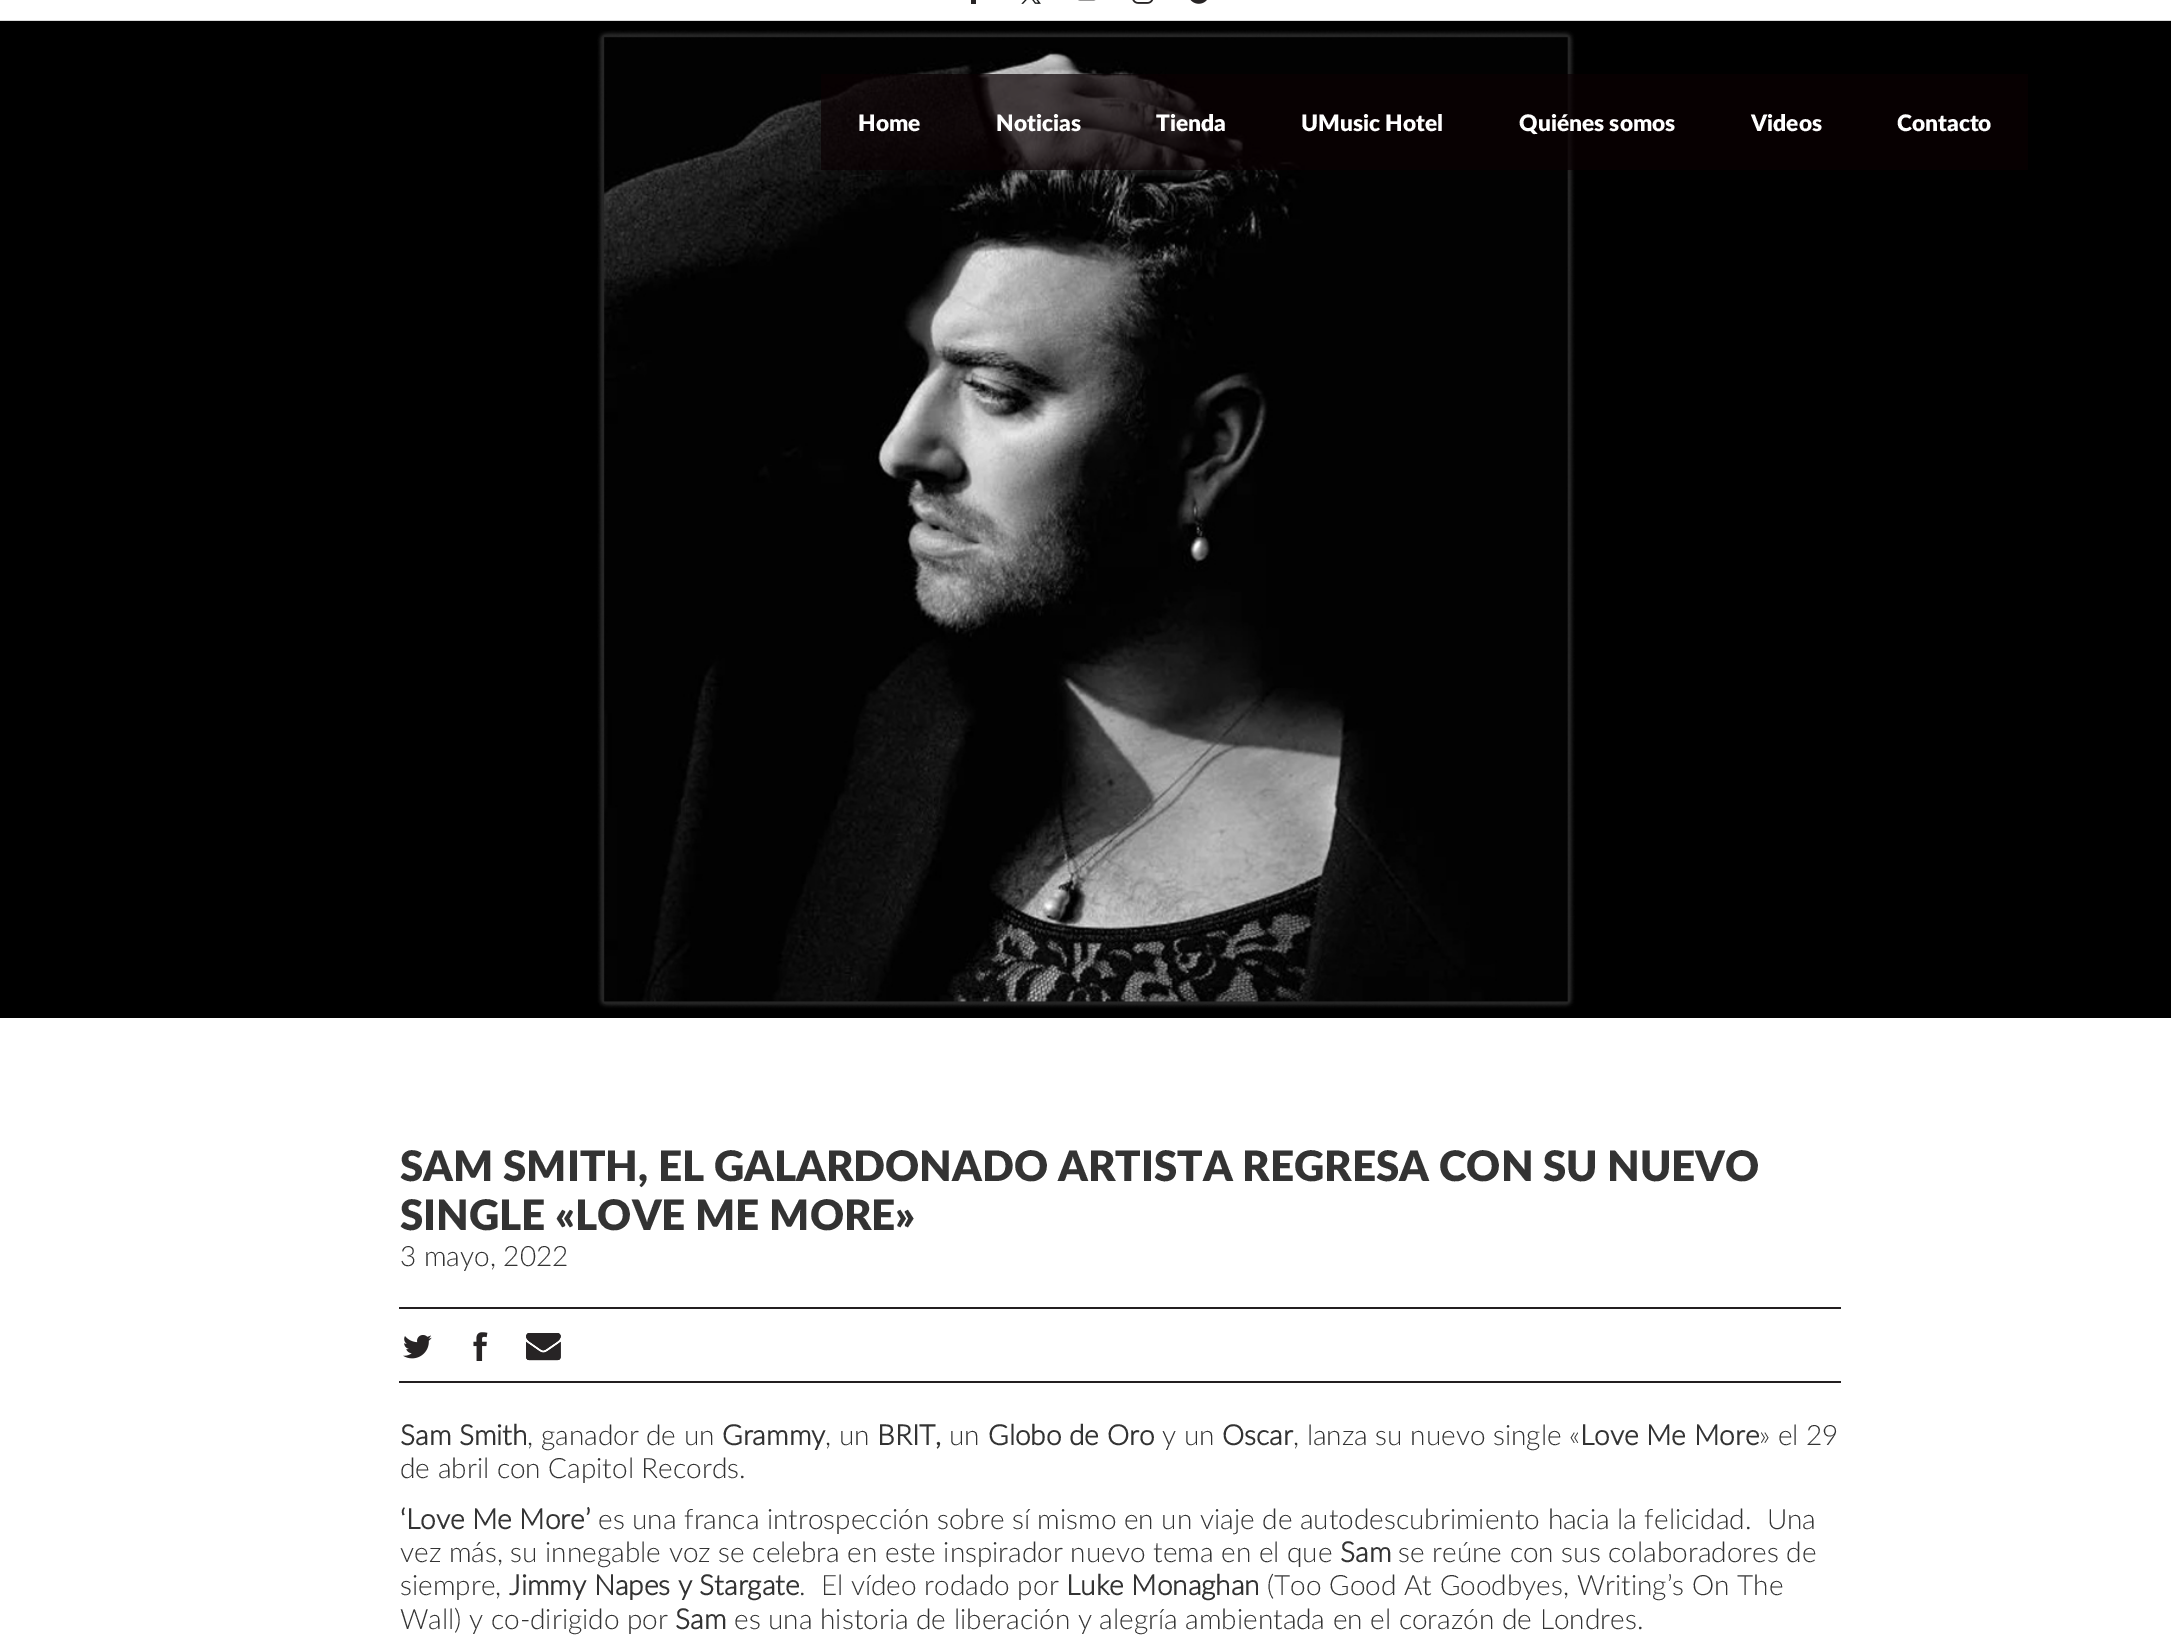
%!PS
<< /PageSize [2171 1652] /PageUsesTransparency true >> setpagedevice
/rgb { 3 { 255 div 3 1 roll } repeat setrgbcolor } def
/font { [ exch dup neg 0 0 3 -1 roll 0 0 ] selectfont } def
/text { moveto show } def
/alpha { dup .setfillconstantalpha .setstrokeconstantalpha } def
/picture { 5 dict begin { /h /w /y /x /name } { exch def } forall
  gsave x y translate w h scale
  w h 8 [w 0 0 h 0 0] name (r) file false 3 colorimage grestore end } def
0 .pushpdf14devicefilter
0 1652 translate 1 -1 scale
4 setmiterlimit
255 255 255 rgb
0 0 2171 1652 rectfill
(img_05.rgb) 0 20 2171 998 picture
0.7 alpha
0 20 2171 1 rectfill
1 alpha
39 36 37 rgb
971 0 5 4 rectfill
(img_01.rgb) 1021 0 20 4 picture
(img_02.rgb) 1078 0 18 1 picture
(img_03.rgb) 1132 0 22 4 picture
(img_04.rgb) 1190 0 17 4 picture
0.7 alpha
10 0 2 rgb
821 74 1207 96 rectfill
1 alpha
35 31 32 rgb
399 1307 1442 2 rectfill
(img_06.rgb) 403 1335 29 24 picture
(img_07.rgb) 473 1332 15 29 picture
(img_08.rgb) 526 1333 35 28 picture
399 1381 1442 2 rectfill
/Lato-Black 22.75 font
255 255 255 rgb
(Home) 858 131 text
(Noticias) 996 131 text
(Tienda) 1156 131 text
(UMusic Hotel) 1301 131 text
(Quiénes somos) 1519 131 text
(Videos) 1751 131 text
(Contacto) 1897 131 text
/Lato-Black 42 font
51 51 51 rgb
(SAM SMITH, EL GALARDONADO ARTISTA REGRESA CON SU NUEVO) 400 1181 text
(SINGLE «LOVE ME MORE») 400 1230 text
/Lato-Light 28 font
(3 mayo, 2022) 400 1266 text
/Lato-Bold 28 font
(Sam Smith) 400 1445 text
/Lato-Light 28 font
(, ganador de un) 527 1445 text
/Lato-Bold 28 font
(Grammy) 722 1445 text
/Lato-Light 28 font
(, un) 825 1445 text
/Lato-Bold 28 font
(BRIT,) 877 1445 text
/Lato-Light 28 font
(un) 949 1445 text
/Lato-Bold 28 font
(Globo de Oro) 988 1445 text
/Lato-Light 28 font
(y un) 1162 1445 text
/Lato-Bold 28 font
(Oscar) 1222 1445 text
/Lato-Light 28 font
(, lanza su nuevo single «) 1293 1445 text
/Lato-Bold 28 font
(Love Me More) 1580 1445 text
/Lato-Light 28 font
(» el 29) 1759 1445 text
(de abril con Capitol Records.) 400 1478 text
/Lato-Bold 28 font
(‘Love Me More’) 400 1529 text
/Lato-Light 28 font
(es una franca introspección sobre sí mismo en un viaje de autodescubrimiento hacia la felicidad.  Una) 598 1529 text
(vez más, su innegable voz se celebra en este inspirador nuevo tema en el que) 400 1562 text
/Lato-Bold 28 font
(Sam) 1340 1562 text
/Lato-Light 28 font
(se reúne con sus colaboradores de) 1398 1562 text
(siempre,) 400 1595 text
/Lato-Bold 28 font
(Jimmy Napes y Stargate) 509 1595 text
/Lato-Light 28 font
(.  El vídeo rodado por) 799 1595 text
/Lato-Bold 28 font
(Luke Monaghan) 1066 1595 text
/Lato-Light 28 font
(\(Too Good At Goodbyes, Writing’s On The) 1267 1595 text
(Wall\) y co-dirigido por) 400 1629 text
/Lato-Bold 28 font
(Sam) 675 1629 text
/Lato-Light 28 font
(es una historia de liberación y alegría ambientada en el corazón de Londres.) 734 1629 text
.poppdf14devicefilter showpage
